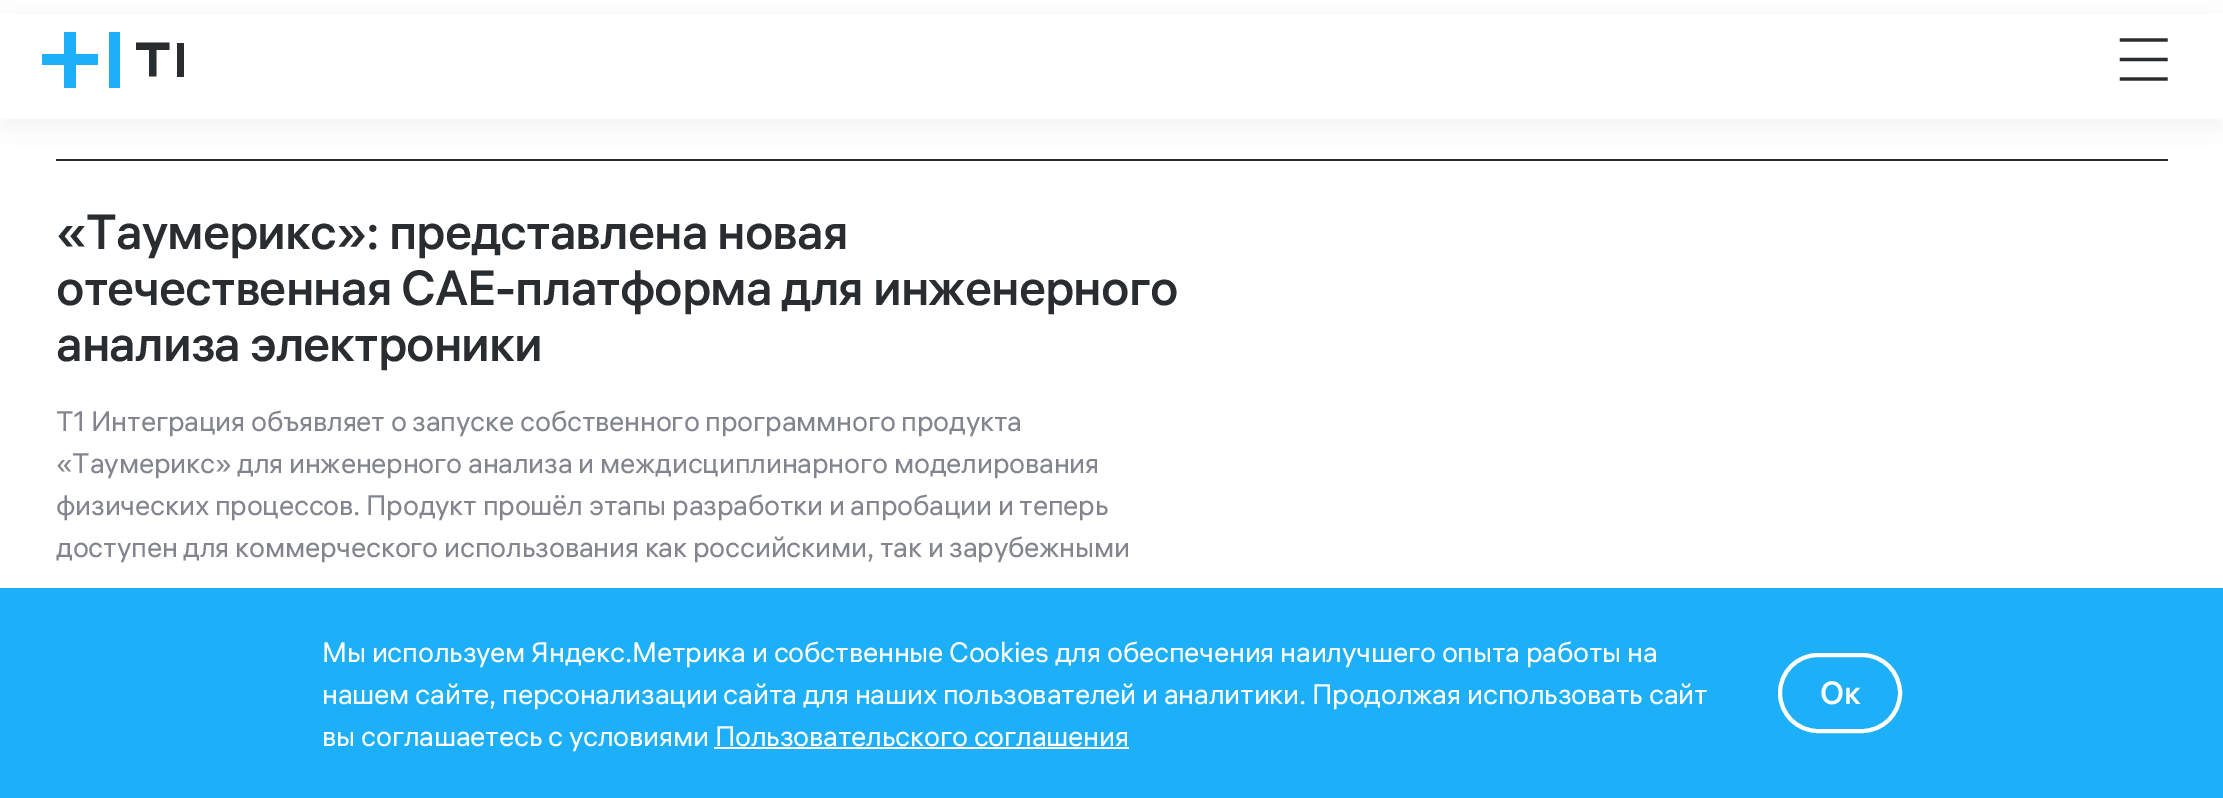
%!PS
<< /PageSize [2223 798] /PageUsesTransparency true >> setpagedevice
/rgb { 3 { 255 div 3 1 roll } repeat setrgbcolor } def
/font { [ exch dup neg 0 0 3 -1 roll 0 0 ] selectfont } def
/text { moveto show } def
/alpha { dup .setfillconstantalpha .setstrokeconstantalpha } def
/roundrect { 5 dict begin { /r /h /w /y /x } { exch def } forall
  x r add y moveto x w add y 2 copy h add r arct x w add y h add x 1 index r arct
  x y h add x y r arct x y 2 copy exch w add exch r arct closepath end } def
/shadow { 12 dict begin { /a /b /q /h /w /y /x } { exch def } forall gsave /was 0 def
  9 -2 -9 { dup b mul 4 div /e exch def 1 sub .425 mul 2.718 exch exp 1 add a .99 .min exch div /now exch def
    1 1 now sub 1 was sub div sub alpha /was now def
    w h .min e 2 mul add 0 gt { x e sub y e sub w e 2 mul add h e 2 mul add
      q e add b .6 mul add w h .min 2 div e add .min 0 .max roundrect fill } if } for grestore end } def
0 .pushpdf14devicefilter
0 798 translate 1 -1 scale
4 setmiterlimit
255 255 255 rgb
0 0 2223 798 rectfill
124 124 124 rgb
7 21 2210 105 0 10.5 0.08 shadow
255 255 255 rgb
0 14 2223 105 rectfill
42 45 48 rgb
169.5 42.5 moveto -33.5 0 rlineto 0 7.5 rlineto 13 0 rlineto 0 26.5 rlineto 7.5 0 rlineto 0 -26.5 rlineto 13 0 rlineto closepath fill
177 43 7 34 rectfill
29 175 247 rgb
76 54 moveto 22 0 rlineto 0 11 rlineto -22 0 rlineto 0 23 rlineto -12 0 rlineto 0 -23 rlineto -22 0 rlineto 0 -11 rlineto 22 0 rlineto 0 -22 rlineto 12 0 rlineto closepath 109 32 moveto 0 56 rlineto 11 0 rlineto 0 -56 rlineto closepath fill
42 45 48 rgb
3.2 setlinewidth
2 setlinecap
2121.5 59.5 moveto 44.5 0 rlineto 2121.5 40 moveto 44.5 0 rlineto 2121.5 79 moveto 44.5 0 rlineto stroke
56 159 2112 2 rectfill
29 175 247 rgb
0 588 2223 210 rectfill
255 255 255 rgb
714 747 415 2 rectfill
4 setlinewidth
0 setlinecap
1780 655 120 76 38 roundrect stroke
/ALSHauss-Medium 49 font
42 45 48 rgb
56 249 moveto -1 0 («Таумерикс»: представлена новая) ashow
56 305 moveto -1 0 (отечественная CAE-платформа для инженерного) ashow
56 361 moveto -1 0 (анализа электроники) ashow
/ALSHauss-Regular 28 font
130 133 142 rgb
56 431 moveto -0.28 0 (Т1 Интеграция объявляет о запуске собственного программного продукта) ashow
56 473 moveto -0.28 0 («Таумерикс» для инженерного анализа и междисциплинарного моделирования) ashow
56 515 moveto -0.28 0 (физических процессов. Продукт прошёл этапы разработки и апробации и теперь) ashow
56 557 moveto -0.28 0 (доступен для коммерческого использования как российскими, так и зарубежными) ashow
255 255 255 rgb
322 662 moveto -0.28 0 (Мы используем Яндекс.Метрика и собственные Сookies для обеспечения наилучшего опыта работы на) ashow
322 704 moveto -0.28 0 (нашем сайте, персонализации сайта для наших пользователей и аналитики. Продолжая использовать сайт) ashow
322 746 moveto -0.28 0 (вы соглашаетесь с условиями Пользовательского соглашения) ashow
/ALSHauss-Medium 32 font
(Ок) 1820 704 text
.poppdf14devicefilter showpage
